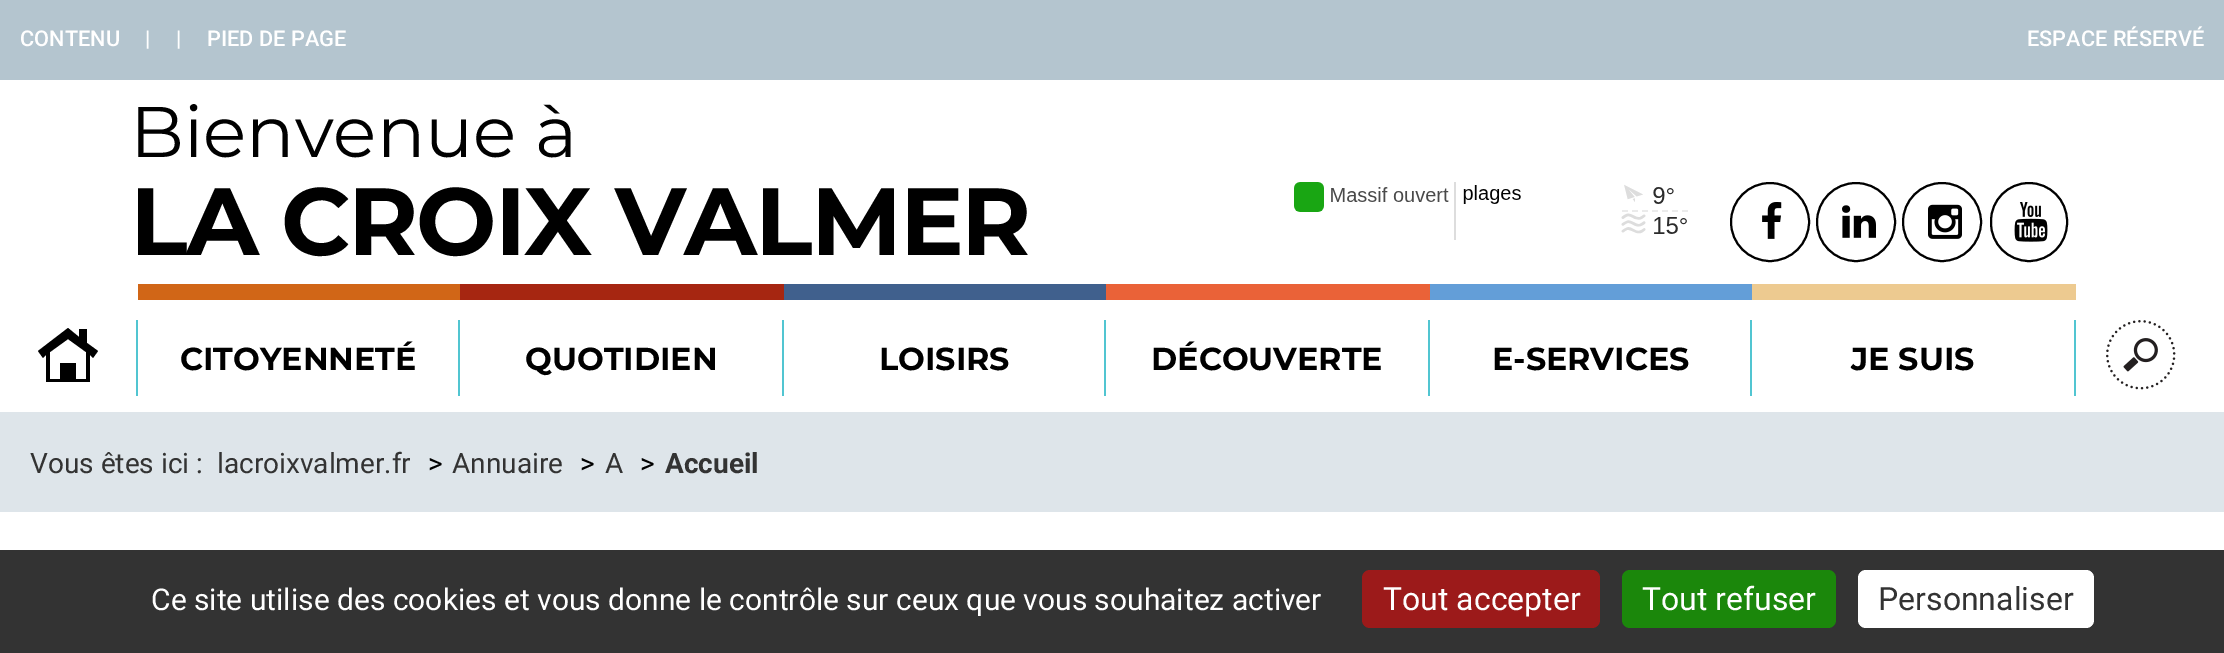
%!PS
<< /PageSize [2224 653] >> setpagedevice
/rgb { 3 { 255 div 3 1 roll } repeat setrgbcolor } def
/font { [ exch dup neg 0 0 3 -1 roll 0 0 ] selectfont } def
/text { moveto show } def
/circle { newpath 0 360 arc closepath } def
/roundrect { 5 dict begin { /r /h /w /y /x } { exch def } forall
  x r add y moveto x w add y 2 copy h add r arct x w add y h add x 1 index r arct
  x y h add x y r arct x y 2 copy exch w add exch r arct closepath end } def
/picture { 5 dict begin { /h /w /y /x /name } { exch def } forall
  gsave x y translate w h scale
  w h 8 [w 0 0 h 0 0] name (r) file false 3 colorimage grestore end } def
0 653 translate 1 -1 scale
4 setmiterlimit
255 255 255 rgb
0 0 2224 653 rectfill
180 197 207 rgb
0 0 2224 80 rectfill
(img_01.rgb) 1294 182 394 58 picture
0 0 0 rgb
2 setlinewidth
1770 222 39 circle stroke
(img_02.rgb) 1762 202 20 37 picture
1856 222 39 circle stroke
(img_03.rgb) 1842 205 34 33 picture
1942 222 39 circle stroke
(img_04.rgb) 1928 204 34 35 picture
1991 183 76 78 38 roundrect stroke
(img_05.rgb) 2014 202 34 40 picture
81 197 209 rgb
136 320 2 76 rectfill
gsave
38 328 60 54 rectclip
0 0 0 rgb
50 352 moveto 18 -13 rlineto 18 13 rlineto 0 27 rlineto -10 0 rlineto 0 -16 rlineto -16 0 rlineto 0 16 rlineto -10 0 rlineto closepath 68 328 moveto -30 23 rlineto 5 7 rlineto 3 -3 rlineto 0 29 rlineto 44 0 rlineto 0 -29 rlineto 3 3 rlineto 5 -7 rlineto -11 -8 rlineto 0 -14 rlineto -8 0 rlineto 0 8 rlineto closepath fill
grestore
209 102 23 rgb
138 284 322 16 rectfill
81 197 209 rgb
458 320 2 76 rectfill
166 38 17 rgb
460 284 324 16 rectfill
81 197 209 rgb
782 320 2 76 rectfill
64 96 141 rgb
784 284 322 16 rectfill
81 197 209 rgb
1104 320 2 76 rectfill
234 98 56 rgb
1106 284 324 16 rectfill
81 197 209 rgb
1428 320 2 76 rectfill
99 158 216 rgb
1430 284 322 16 rectfill
81 197 209 rgb
1750 320 2 76 rectfill
237 202 144 rgb
1752 284 324 16 rectfill
81 197 209 rgb
2074 320 2 76 rectfill
(img_06.rgb) 2106 320 70 70 picture
222 229 234 rgb
0 412 2224 100 rectfill
51 51 51 rgb
0 550 2224 103 rectfill
156 26 26 rgb
1362 570 238 58 8 roundrect fill
27 135 11 rgb
1622 570 214 58 8 roundrect fill
255 255 255 rgb
1858 570 236 58 8 roundrect fill
/Roboto-Medium 21.75 font
(CONTENU) 20 46 text
(|) 145 46 text
(|) 176 46 text
(PIED DE PAGE) 207 46 text
(ESPACE RÉSERVÉ) 2027 46 text
/Montserrat-Regular 71.5 font
0 0 0 rgb
(Bienvenue à) 130 157 text
/Montserrat-Bold 95.25 font
130 255 moveto -2 0 (LA CROIX VALMER) ashow
/Montserrat-Bold 31.75 font
(CITOYENNETÉ) 180 370 text
(QUOTIDIEN) 525 370 text
(LOISIRS) 879 370 text
(DÉCOUVERTE) 1151 370 text
(E-SERVICES) 1492 370 text
(JE SUIS) 1851 370 text
/Roboto-Regular 28 font
51 51 51 rgb
(Vous êtes ici :) 30 473 text
(lacroixvalmer.fr) 217 473 text
0 0 0 rgb
(>) 428 473 text
51 51 51 rgb
(Annuaire) 452 473 text
0 0 0 rgb
(>) 580 473 text
51 51 51 rgb
(A) 605 473 text
0 0 0 rgb
(>) 640 473 text
/Roboto-Bold 28 font
51 51 51 rgb
(Accueil) 665 473 text
/Roboto-Regular 30 font
255 255 255 rgb
(Ce site utilise des cookies et vous donne le contrôle sur ceux que vous souhaitez activer) 151 610 text
/Roboto-Regular 32 font
(Tout accepter) 1383 610 text
(Tout refuser) 1642 610 text
51 51 51 rgb
(Personnaliser) 1878 610 text
showpage
